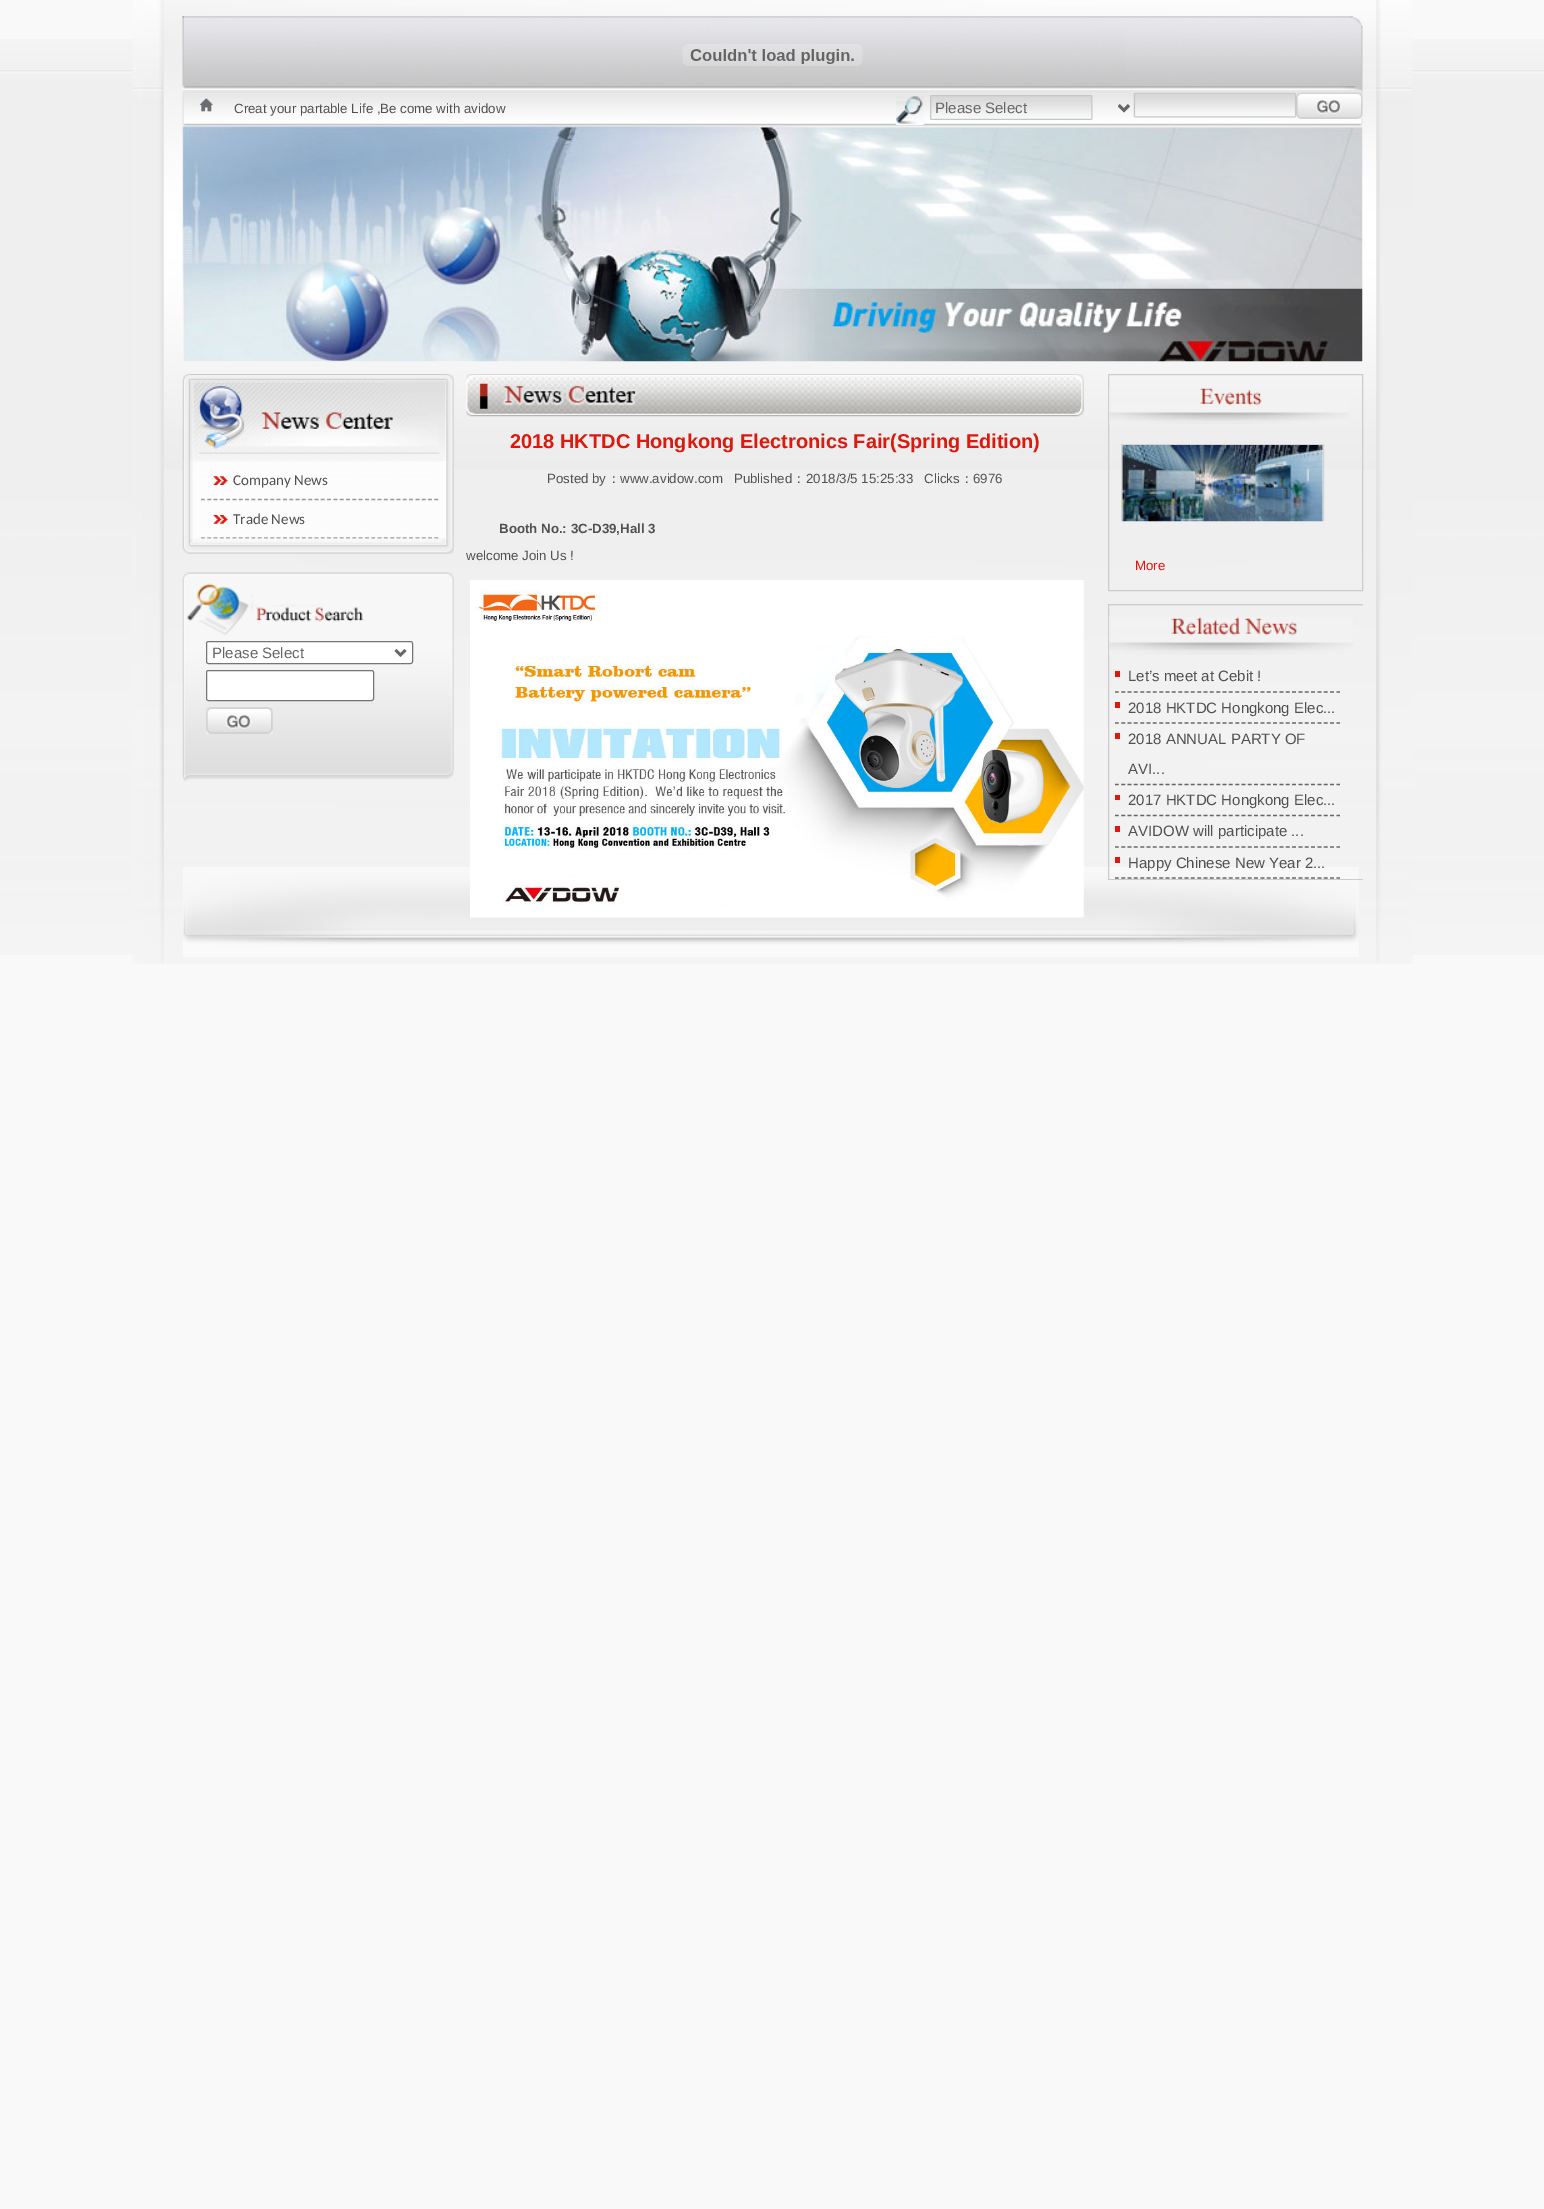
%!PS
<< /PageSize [1544 2209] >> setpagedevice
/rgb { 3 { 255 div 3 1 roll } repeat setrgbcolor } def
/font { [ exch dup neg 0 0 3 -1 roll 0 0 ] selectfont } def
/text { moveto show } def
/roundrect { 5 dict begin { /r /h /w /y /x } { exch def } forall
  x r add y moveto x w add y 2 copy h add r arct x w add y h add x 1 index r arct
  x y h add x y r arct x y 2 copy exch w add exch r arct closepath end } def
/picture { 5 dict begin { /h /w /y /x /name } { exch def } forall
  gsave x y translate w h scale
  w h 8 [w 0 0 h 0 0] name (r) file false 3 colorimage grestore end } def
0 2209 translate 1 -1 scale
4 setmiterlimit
249 249 249 rgb
0 0 1544 2209 rectfill
(img_01.rgb) 0 39 1544 916 picture
(img_02.rgb) 132 0 1281 964 picture
(img_03.rgb) 182 16 1181 78 picture
(img_04.rgb) 682 44 181 22 picture
(img_05.rgb) 182 90 1181 37 picture
(img_06.rgb) 896 96 28 29 picture
(img_07.rgb) 930 95 200 25 picture
102 102 102 rgb
2.5 setlinewidth
1119 105.5 moveto 5 5 rlineto 5 -5 rlineto stroke
(img_08.rgb) 1133 92 164 26 picture
(img_09.rgb) 1296 92 67 27 picture
(img_10.rgb) 182 126 1181 236 picture
(img_11.rgb) 183 867 1176 90 picture
(img_12.rgb) 182 374 272 87 picture
(img_13.rgb) 182 461 272 78 picture
153 153 153 rgb
1.2 setlinewidth
[3.75 2.56] 0 setdash
201 499.5 moveto 238 0 rlineto stroke
(img_14.rgb) 213 476 15 9 picture
201 538 moveto 238 0 rlineto stroke
(img_15.rgb) 213 515 15 9 picture
(img_16.rgb) 182 538 272 16 picture
(img_17.rgb) 182 572 272 209 picture
255 255 255 rgb
206.5 641.5 206 22 2 roundrect gsave fill grestore
118 118 118 rgb
1 setlinewidth
[] 0 setdash
stroke
102 102 102 rgb
2.5 setlinewidth
395.5 650 moveto 5 5 rlineto 5 -5 rlineto stroke
255 255 255 rgb
206.5 670.5 167 30 2 roundrect gsave fill grestore
118 118 118 rgb
1 setlinewidth
stroke
(img_18.rgb) 206 707 67 27 picture
(img_19.rgb) 466 374 618 43 picture
(img_20.rgb) 470 580 614 338 picture
204 204 204 rgb
1108.5 374.5 254 216 rectstroke
(img_21.rgb) 1109 388 239 36 picture
212 212 212 rgb
1121.5 444.5 202 76 rectstroke
(img_22.rgb) 1122 445 201 77 picture
gsave
1108 374 255 506 rectclip
204 204 204 rgb
1108.5 604.5 259 275 rectstroke
grestore
(img_23.rgb) 1109 617 244 38 picture
221 24 13 rgb
1115 671 5 6 rectfill
102 102 102 rgb
1.2 setlinewidth
[3.75 2.58] 0 setdash
1115 692 moveto 225 0 rlineto stroke
221 24 13 rgb
1115 702 5 6 rectfill
102 102 102 rgb
1115 723 moveto 225 0 rlineto stroke
221 24 13 rgb
1115 733 5 6 rectfill
102 102 102 rgb
1115 784.5 moveto 225 0 rlineto stroke
221 24 13 rgb
1115 795 5 5 rectfill
102 102 102 rgb
1115 815.5 moveto 225 0 rlineto stroke
221 24 13 rgb
1115 826 5 6 rectfill
102 102 102 rgb
1115 847 moveto 225 0 rlineto stroke
221 24 13 rgb
1115 857 5 6 rectfill
102 102 102 rgb
1115 878 moveto 225 0 rlineto stroke
/LiberationSans-Regular 13.3 font
81 81 81 rgb
(Creat your partable Life ,Be come with avidow) 234 113 text
/LiberationSans-Regular 15 font
102 102 102 rgb
(Please Select) 935 113 text
/Carlito-Regular 15 font
81 81 81 rgb
(Company News) 233 485 text
(Trade News) 233 524 text
/LiberationSans-Regular 15 font
102 102 102 rgb
(Please Select) 212 658 text
/LiberationSans-Bold 20 font
221 24 13 rgb
(2018 HKTDC Hongkong Electronics Fair\(Spring Edition\)) 510 448 text
/LiberationSans-Regular 13.3 font
81 81 81 rgb
(Posted by) 547 483 text
/WenQuanYiZenHei-Medium 13.3 font
(：) 607 483 text
/LiberationSans-Regular 13.3 font
(www.avidow.com   Published) 620 483 text
/WenQuanYiZenHei-Medium 13.3 font
(：) 792 483 text
/LiberationSans-Regular 13.3 font
(2018/3/5 15:25:33   Clicks) 806 483 text
/WenQuanYiZenHei-Medium 13.3 font
(：) 960 483 text
/LiberationSans-Regular 13.3 font
(6976) 973 483 text
/LiberationSans-Bold 13.3 font
(Booth No.: 3C-D39,Hall 3) 499 533 text
/LiberationSans-Regular 13.3 font
(welcome Join Us !) 466 560 text
221 24 13 rgb
(More) 1135 570 text
/LiberationSans-Regular 15 font
81 81 81 rgb
(Let’s meet at Cebit !) 1128 681 text
(2018 HKTDC Hongkong Elec...) 1128 713 text
(2018 ANNUAL PARTY OF) 1128 744 text
(AVI...) 1128 774 text
(2017 HKTDC Hongkong Elec...) 1128 805 text
(AVIDOW will participate ...) 1128 836 text
(Happy Chinese New Year 2...) 1128 868 text
showpage
